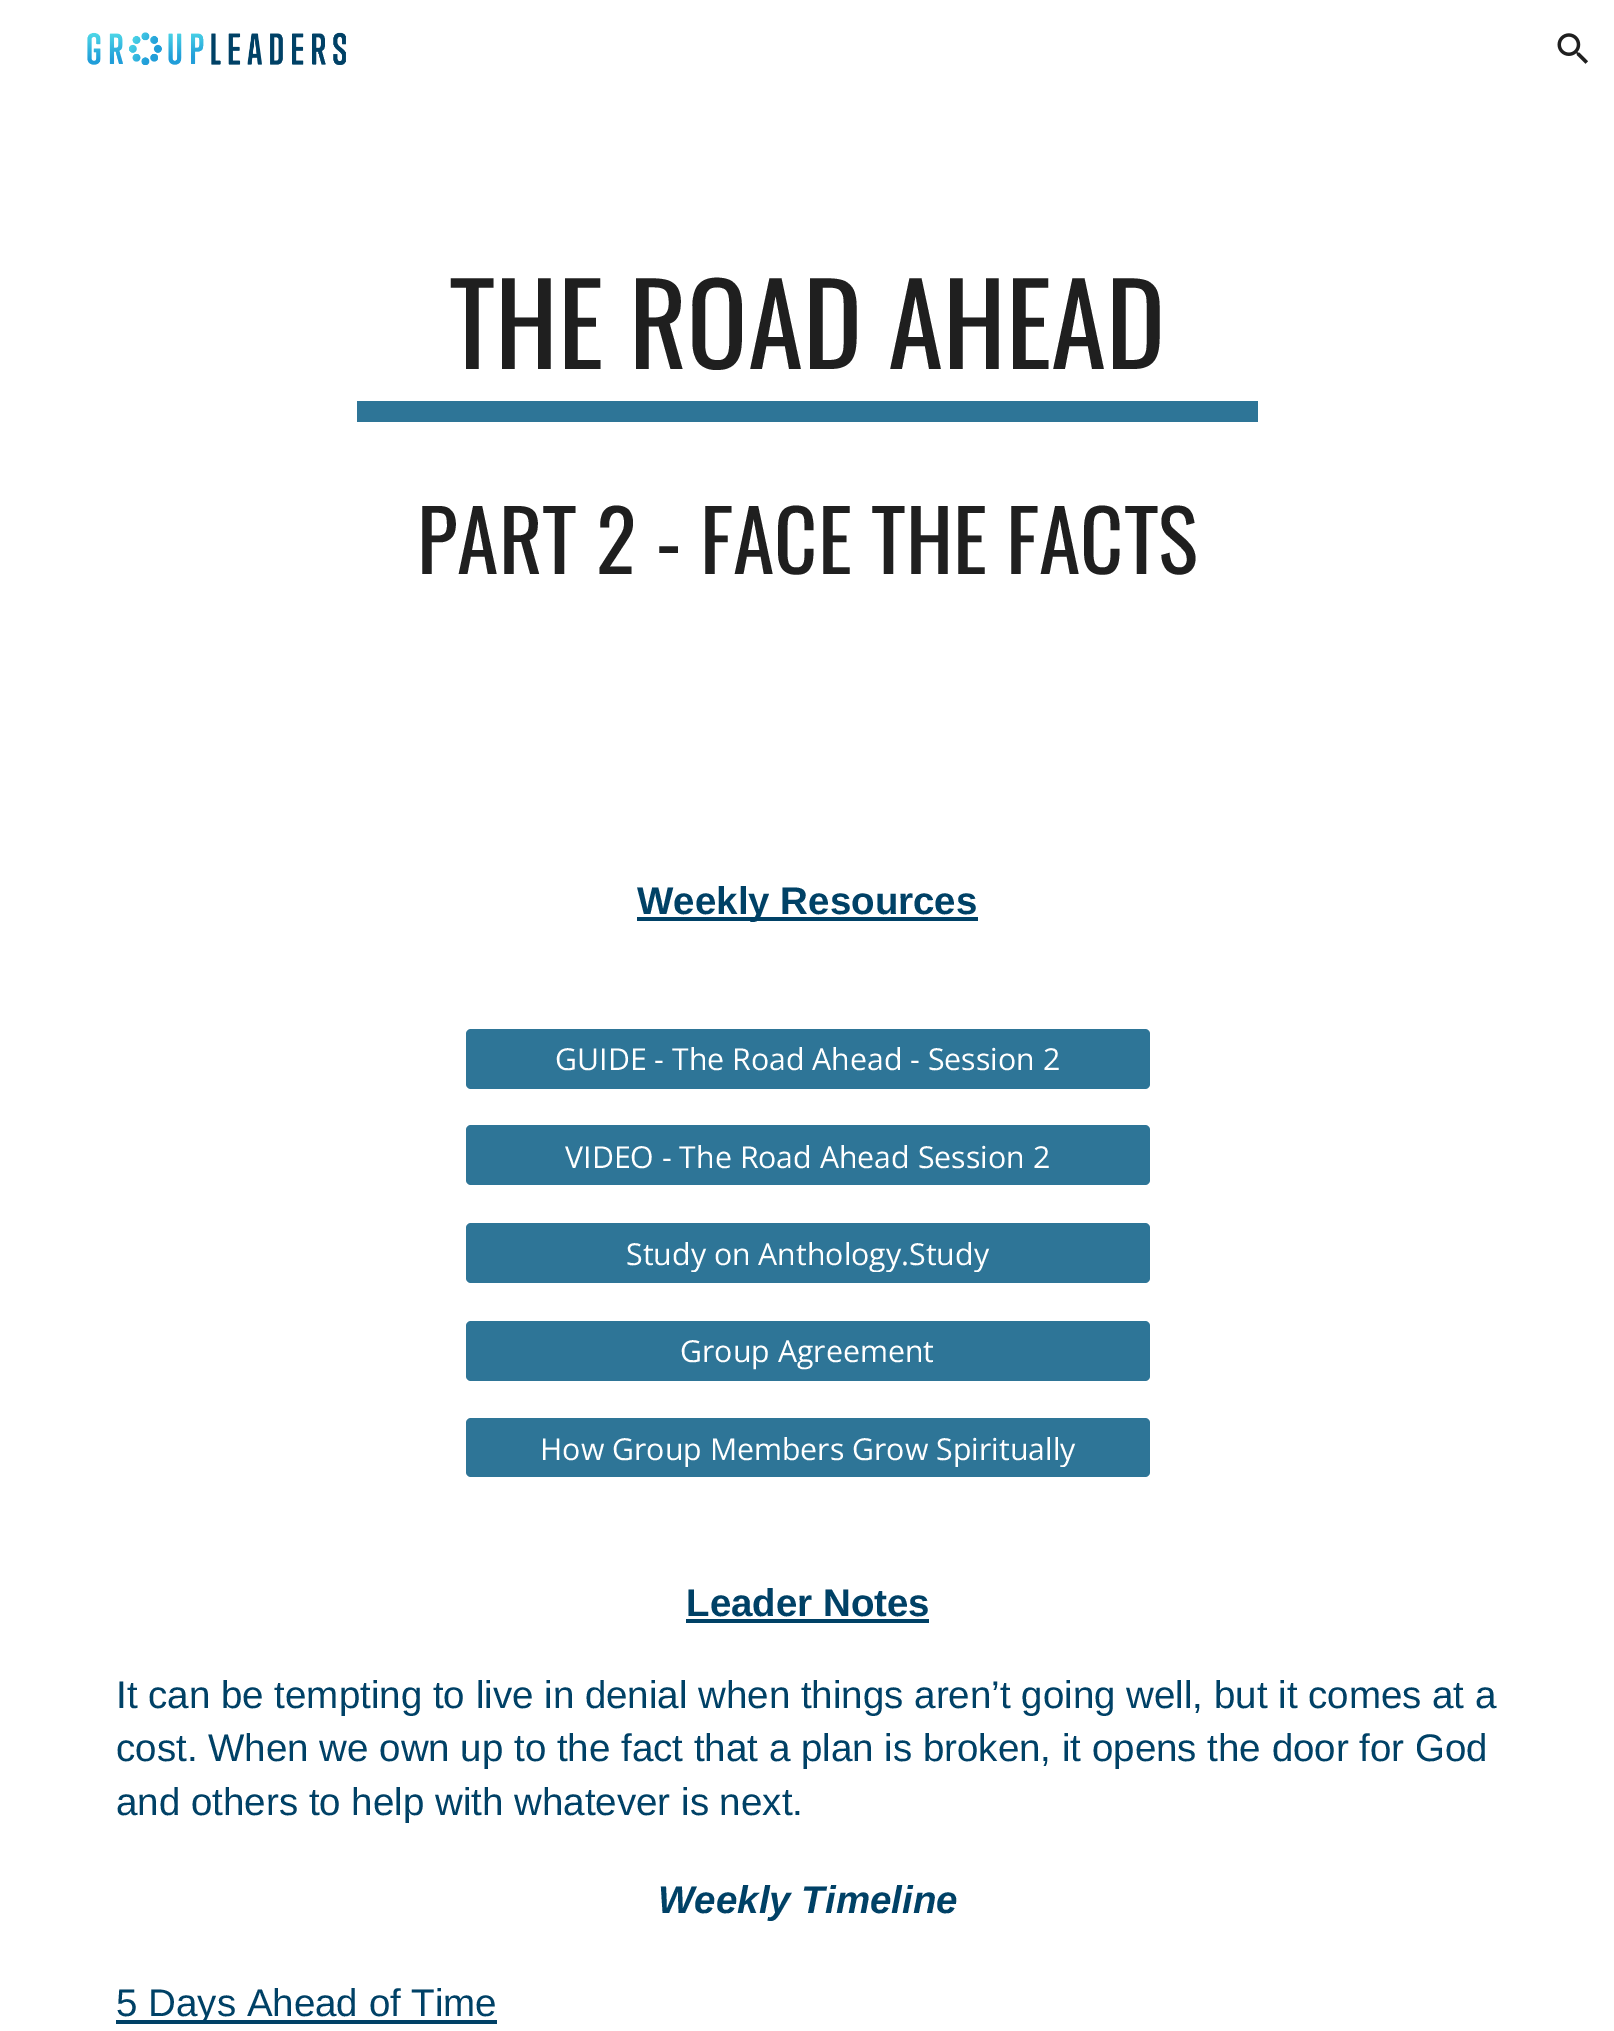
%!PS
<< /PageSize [1614 2031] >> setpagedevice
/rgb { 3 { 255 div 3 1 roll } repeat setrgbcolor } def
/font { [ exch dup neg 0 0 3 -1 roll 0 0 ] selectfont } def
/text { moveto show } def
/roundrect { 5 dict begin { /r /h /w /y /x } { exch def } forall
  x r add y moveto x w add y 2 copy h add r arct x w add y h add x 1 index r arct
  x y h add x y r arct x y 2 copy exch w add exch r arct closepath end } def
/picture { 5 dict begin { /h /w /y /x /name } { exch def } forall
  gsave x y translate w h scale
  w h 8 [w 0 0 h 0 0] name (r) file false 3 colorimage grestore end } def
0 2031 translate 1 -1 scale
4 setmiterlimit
255 255 255 rgb
0 0 1614 2031 rectfill
(img_01.rgb) 87 32 259 33 picture
(img_02.rgb) 1557 33 31 31 picture
46 117 151 rgb
357 401 901 21 rectfill
0 65 102 rgb
637 917 341 4 rectfill
46 117 151 rgb
466 1029 684 60 5 roundrect fill
466 1125 684 60 5 roundrect fill
466 1223 684 60 5 roundrect fill
466 1321 684 60 5 roundrect fill
466 1418 684 59 5 roundrect fill
0 65 102 rgb
686 1619 243 4 rectfill
116 2020 381 4 rectfill
/Oswald-Regular 112 font
31 31 31 rgb
(THE ROAD AHEAD) 449 369 text
/Oswald-Regular 84 font
(PART 2 - FACE THE FACTS) 417 574 text
/LiberationSans-Bold 38.5 font
0 65 102 rgb
(Weekly Resources) 637 914 text
/OpenSans-Regular 30.3 font
255 255 255 rgb
(GUIDE - The Road Ahead - Session 2) 555 1070 text
(VIDEO - The Road Ahead Session 2) 565 1168 text
gsave
487 1234 642 38 rectclip
(Study on Anthology.Study) 626 1265 text
grestore
(Group Agreement) 680 1362 text
gsave
487 1428 642 39 rectclip
(How Group Members Grow Spiritually) 540 1460 text
grestore
/LiberationSans-Bold 38.5 font
0 65 102 rgb
(Leader Notes) 686 1616 text
/LiberationSans-Regular 38.5 font
(It can be tempting to live in denial when things aren’t going well, but it comes at a) 116 1708 text
(cost. When we own up to the fact that a plan is broken, it opens the door for God) 116 1761 text
(and others to help with whatever is next.) 116 1815 text
/LiberationSans-BoldItalic 38.5 font
(Weekly Timeline) 658 1913 text
/LiberationSans-Regular 38.5 font
(5 Days Ahead of Time) 116 2016 text
showpage
